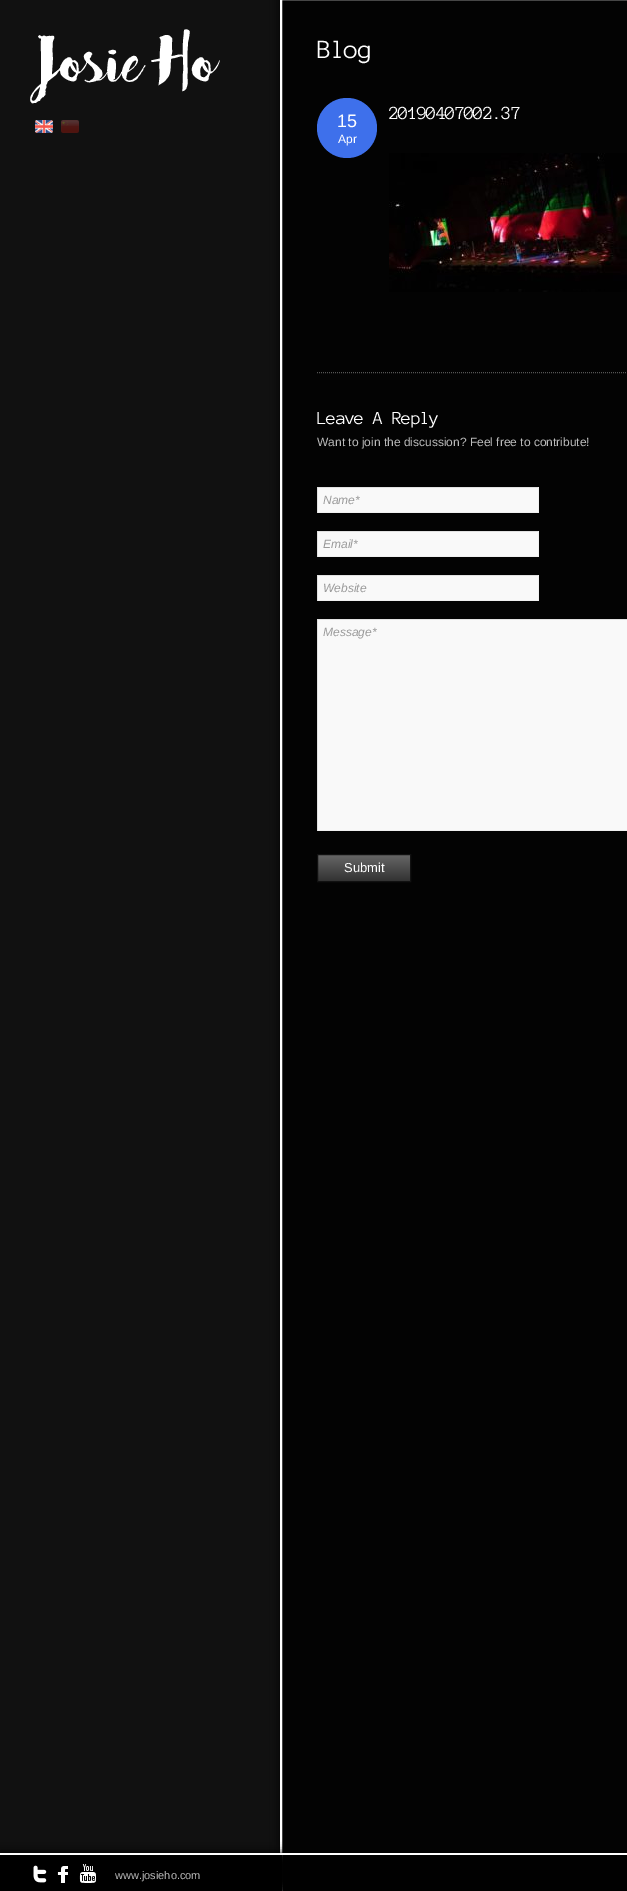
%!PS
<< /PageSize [627 1891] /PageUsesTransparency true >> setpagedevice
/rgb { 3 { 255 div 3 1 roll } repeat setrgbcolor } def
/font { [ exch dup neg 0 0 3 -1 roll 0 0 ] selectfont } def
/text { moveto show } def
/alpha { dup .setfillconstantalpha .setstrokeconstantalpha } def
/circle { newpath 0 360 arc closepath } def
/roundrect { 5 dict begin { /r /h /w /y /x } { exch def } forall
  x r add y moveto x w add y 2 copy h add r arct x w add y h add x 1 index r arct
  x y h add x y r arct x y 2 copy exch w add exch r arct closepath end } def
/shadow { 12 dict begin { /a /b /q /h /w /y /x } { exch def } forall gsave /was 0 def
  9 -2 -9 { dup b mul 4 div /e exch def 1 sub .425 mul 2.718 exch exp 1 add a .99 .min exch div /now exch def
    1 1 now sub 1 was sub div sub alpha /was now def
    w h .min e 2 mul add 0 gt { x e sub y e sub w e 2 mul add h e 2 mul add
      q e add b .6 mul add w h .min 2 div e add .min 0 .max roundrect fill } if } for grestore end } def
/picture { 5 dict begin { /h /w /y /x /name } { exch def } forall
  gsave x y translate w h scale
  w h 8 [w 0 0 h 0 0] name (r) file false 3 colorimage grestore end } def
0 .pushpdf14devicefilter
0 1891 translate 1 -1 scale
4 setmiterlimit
17 17 17 rgb
0 0 627 1891 rectfill
(img_01.rgb) 30 29 190 75 picture
0 0 0 rgb
280 -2 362 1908 0 5 1 shadow
3 3 3 rgb
282 0 345 1853 rectfill
255 255 255 rgb
2 setlinewidth
281 -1 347 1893 rectstroke
62 112 235 rgb
347 128 30 circle fill
(img_02.rgb) 389 153 238 139 picture
85 85 85 rgb
1 setlinewidth
[1 1] 0 setdash
317 372.5 moveto 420 0 rlineto stroke
249 249 249 rgb
318 488 220 24 rectfill
225 225 225 rgb
317 487 222 1 rectfill
240 240 240 rgb
538 487 1 26 rectfill
317 512 222 1 rectfill
225 225 225 rgb
317 487 1 26 rectfill
249 249 249 rgb
318 532 220 24 rectfill
225 225 225 rgb
317 531 222 1 rectfill
240 240 240 rgb
538 531 1 26 rectfill
317 556 222 1 rectfill
225 225 225 rgb
317 531 1 26 rectfill
249 249 249 rgb
318 576 220 24 rectfill
225 225 225 rgb
317 575 222 1 rectfill
240 240 240 rgb
538 575 1 26 rectfill
317 600 222 1 rectfill
225 225 225 rgb
317 575 1 26 rectfill
249 249 249 rgb
318 620 309 210 rectfill
225 225 225 rgb
317 619 310 1 rectfill
240 240 240 rgb
317 830 310 1 rectfill
225 225 225 rgb
317 619 1 212 rectfill
gsave 318 855 moveto 92 0 rlineto 0 26 rlineto -92 0 rlineto closepath clip newpath
<< /ShadingType 2 /ColorSpace /DeviceRGB /Coords [318 855 318 881] /Extend [true true] /Function << /FunctionType 2 /Domain [0 1] /C0 [0.4 0.4 0.4] /C1 [0.2 0.2 0.2] /N 1 >> >> shfill grestore
17 17 17 rgb
[] 0 setdash
317.5 854.5 93 27 rectstroke
(img_03.rgb) 35 120 18 13 picture
(img_04.rgb) 61 120 18 13 picture
0 0 0 rgb
0 1853 627 38 0 5 1 shadow
0 1855 282 36 rectfill
255 255 255 rgb
0 1853 627 2 rectfill
(img_05.rgb) 33 1865 14 18 picture
(img_06.rgb) 57 1866 11 17 picture
(img_07.rgb) 79 1864 17 19 picture
/AnonymousPro-Regular 27 font
317 58 moveto -1 0 (Blog) ashow
/LiberationSans-Regular 18 font
(15) 337 127 text
/LiberationSans-Regular 12 font
(Apr) 338 143 text
/AnonymousPro-Regular 19 font
389 119 moveto -1 0 (20190407002.37) ashow
317 424 moveto -1 0 (Leave A Reply) ashow
/LiberationSans-Regular 12 font
187 187 187 rgb
(Want to join the discussion? Feel free to contribute!) 317 446 text
/LiberationSans-Italic 12 font
153 153 153 rgb
(Name*) 323 504 text
(Email*) 323 548 text
(Website) 323 592 text
(Message*) 323 636 text
/LiberationSans-Regular 13 font
255 255 255 rgb
(Submit) 344 872 text
/LiberationSans-Regular 11 font
187 187 187 rgb
(www.josieho.com) 115 1879 text
.poppdf14devicefilter showpage
